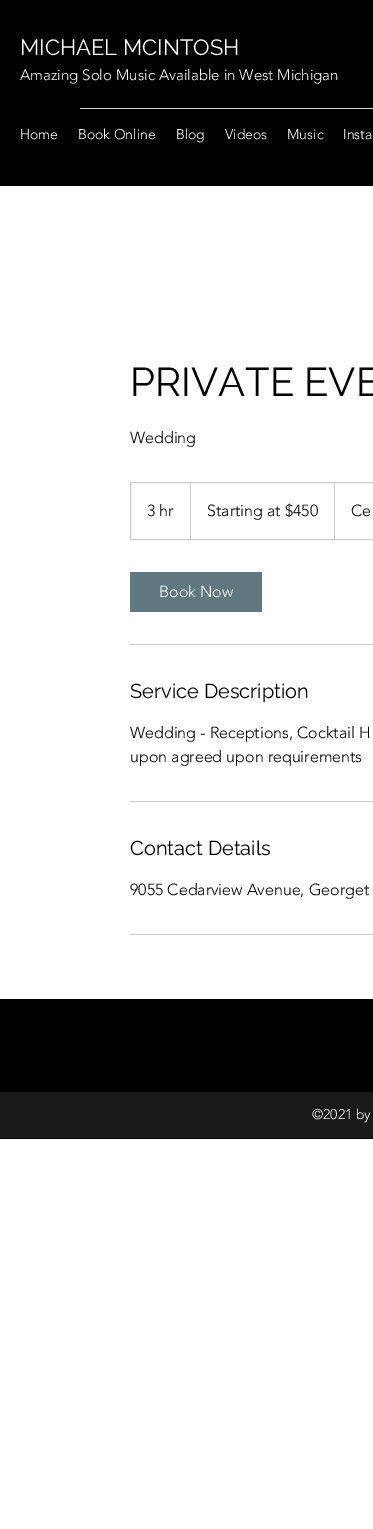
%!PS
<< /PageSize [373 1529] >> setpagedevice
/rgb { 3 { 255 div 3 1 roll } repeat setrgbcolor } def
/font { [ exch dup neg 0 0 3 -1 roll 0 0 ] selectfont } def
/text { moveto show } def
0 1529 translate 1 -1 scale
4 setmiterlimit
255 255 255 rgb
0 0 373 1529 rectfill
0 0 0 rgb
0 0 373 186 rectfill
217 217 217 rgb
80 108 293 1 rectfill
204 204 204 rgb
130.5 482.5 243 57 rectstroke
190 539 moveto 0 -57 rlineto 1 1 rlineto 0 56 rlineto closepath fill
334 539 moveto 0 -57 rlineto 1 1 rlineto 0 56 rlineto closepath fill
96 121 128 rgb
130 572 132 40 rectfill
204 204 204 rgb
130 644 243 1 rectfill
130 801 243 1 rectfill
130 934 243 1 rectfill
0 0 0 rgb
0 999 373 140 rectfill
25 25 25 rgb
0 1092 373 46 rectfill
/Raleway-Regular 22 font
255 255 255 rgb
(MICHAEL MCINTOSH) 20 55 text
/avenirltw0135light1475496-Light 15 font
(Amazing Solo Music Available in West Michigan) 20 80 text
/avenirltw0135light1475496-Light 14 font
(Home) 20 139 text
(Book Online) 78 139 text
(Blog) 176 139 text
(Videos) 225 139 text
(Music) 287 139 text
(Insta) 343 139 text
/Raleway-Regular 40 font
0 0 0 rgb
(PRIVATE EVE) 130 396 text
/avenirltw0135light1475496-Light 16 font
(Wedding) 130 443 text
(3 hr) 147 516 text
(Starting at $450) 207 516 text
(Ce) 351 516 text
255 255 255 rgb
(Book Now) 159 597 text
/Raleway-Regular 20 font
0 0 0 rgb
(Service Description) 130 698 text
/avenirltw0135light1475496-Light 16 font
(Wedding - Receptions, Cocktail H) 130 738 text
(upon agreed upon requirements) 130 762 text
/Raleway-Regular 20 font
(Contact Details) 130 855 text
/avenirltw0135light1475496-Light 16 font
(9055 Cedarview Avenue, Georget) 130 895 text
/avenirltw0135light1475496-Light 14 font
255 255 255 rgb
(©2021 by) 312 1119 text
showpage
